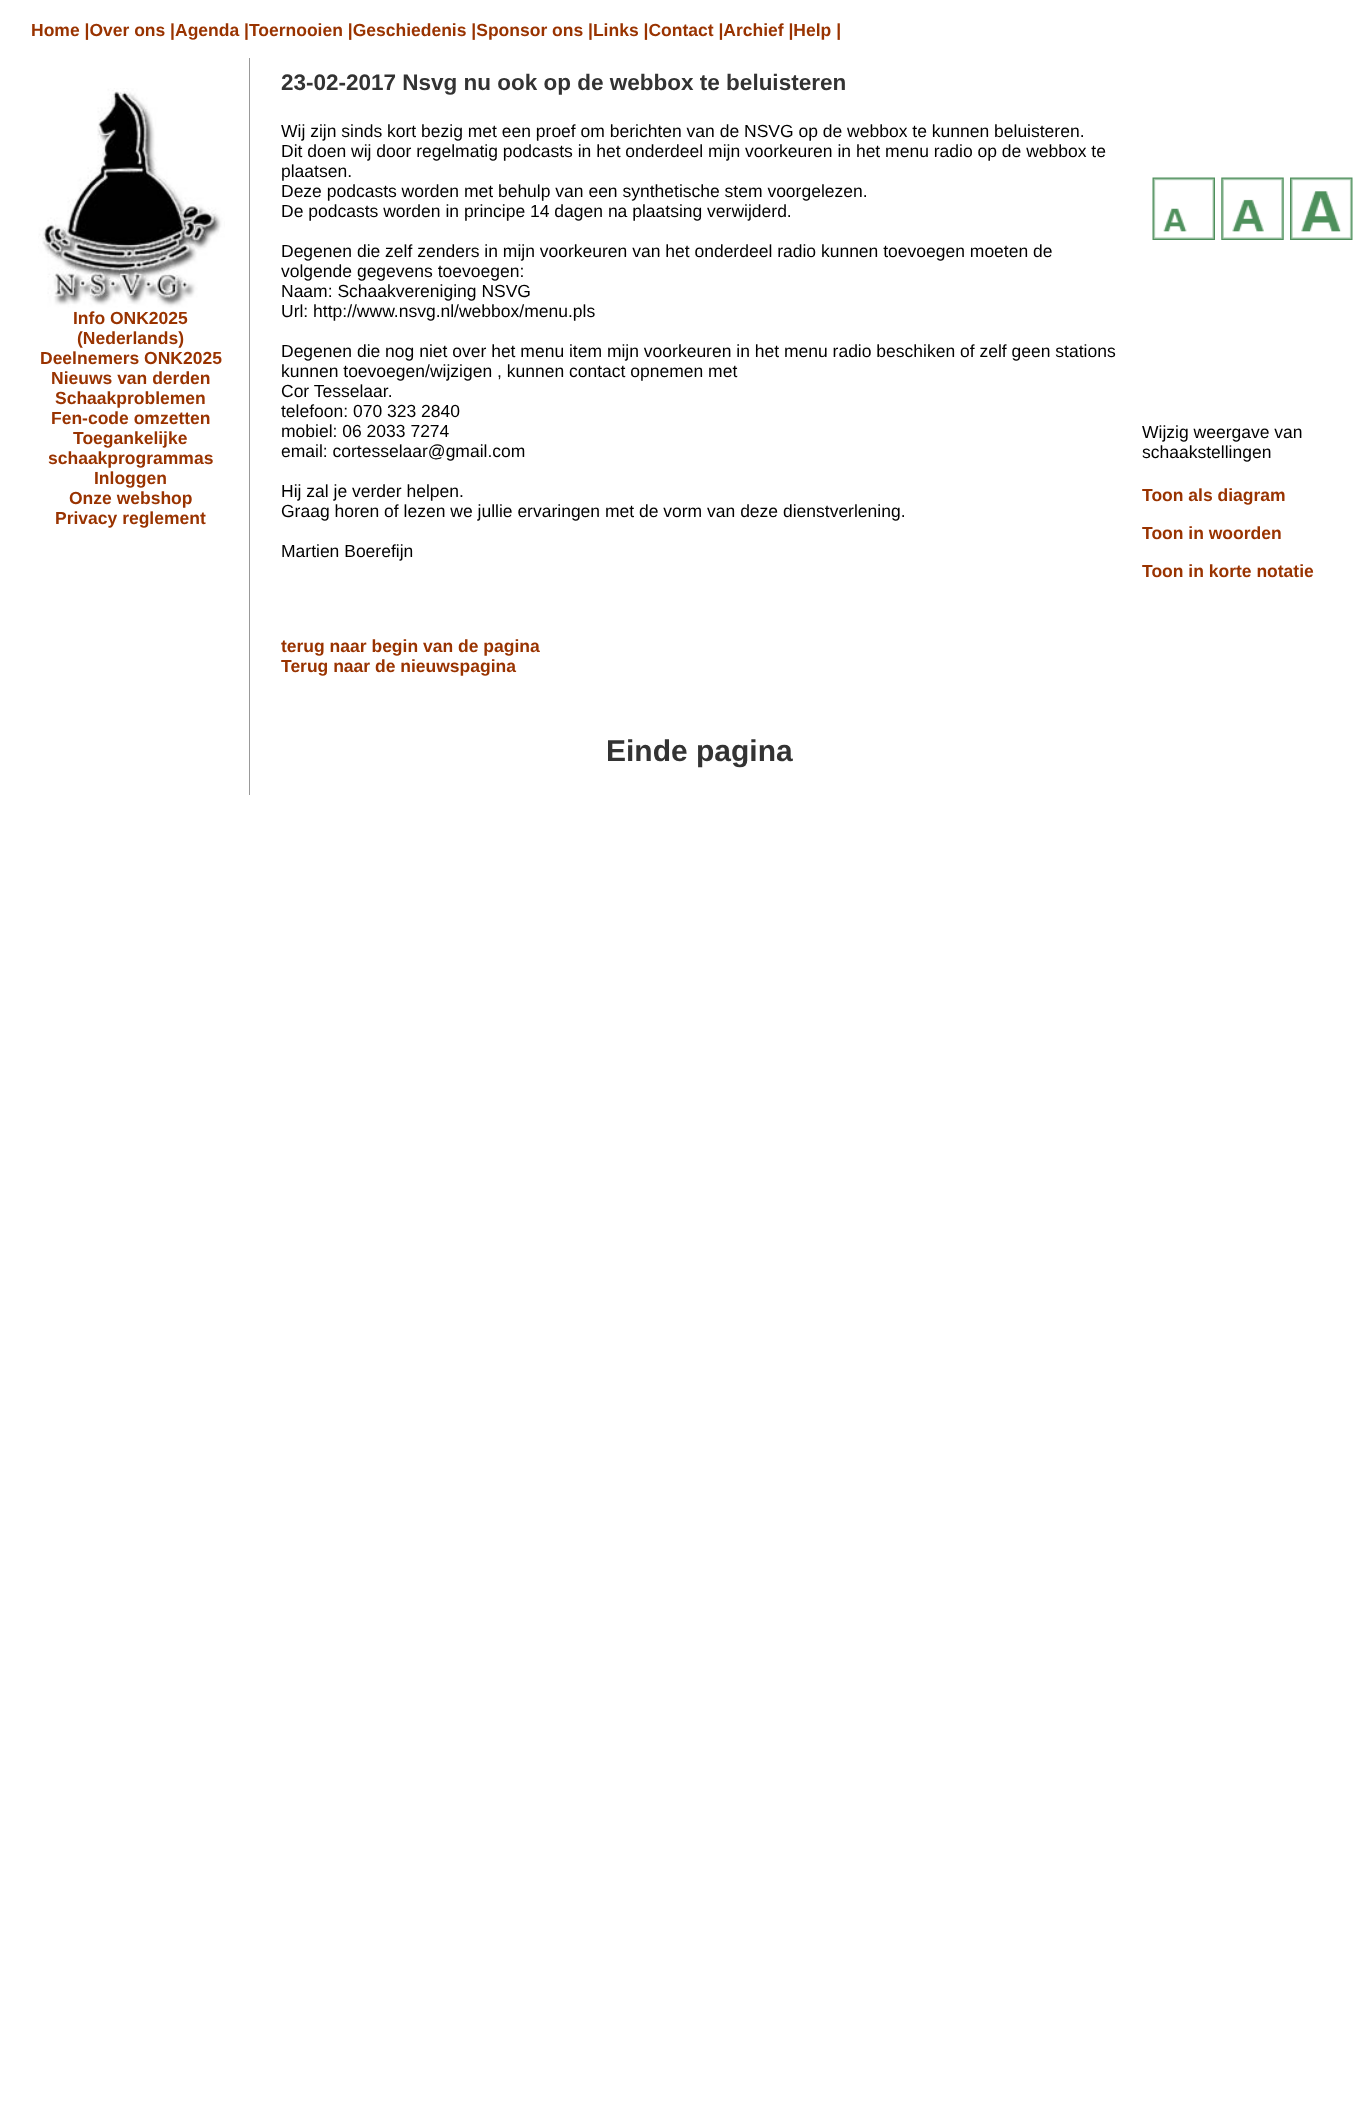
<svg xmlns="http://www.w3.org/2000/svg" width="1369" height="2123">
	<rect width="100%" height="100%" fill="#FFFFFF" />
	<text x="31" y="36" font-family="Liberation Sans" font-size="17.5" font-weight="700" fill="#993300">Home |Over ons |Agenda |Toernooien |Geschiedenis |Sponsor ons |Links |Contact |Archief |Help |</text>
	<rect x="249" y="58" width="1" height="737" fill="#999999" />
	<image x="38" y="88" width="187" height="220" href="assets/img1.png" />
	<g font-family="Liberation Sans" font-size="17.5" font-weight="700" fill="#993300">
		<text x="73" y="324">Info ONK2025</text>
		<text x="77" y="344">(Nederlands)</text>
		<text x="40" y="364">Deelnemers ONK2025</text>
		<text x="51" y="384">Nieuws van derden</text>
		<text x="55" y="404">Schaakproblemen</text>
		<text x="51" y="424">Fen-code omzetten</text>
		<text x="73" y="444">Toegankelijke</text>
		<text x="48" y="464">schaakprogrammas</text>
		<text x="94" y="484">Inloggen</text>
		<text x="69" y="504">Onze webshop</text>
		<text x="55" y="524">Privacy reglement</text>
	</g>
	<text x="281" y="90" font-family="Liberation Sans" font-size="22.5" font-weight="700" fill="#333333">23-02-2017 Nsvg nu ook op de webbox te beluisteren</text>
	<g font-family="Liberation Sans" font-size="17.5" fill="#000000">
		<text x="281" y="137">Wij zijn sinds kort bezig met een proef om berichten van de NSVG op de webbox te kunnen beluisteren.</text>
		<text x="281" y="157">Dit doen wij door regelmatig podcasts in het onderdeel mijn voorkeuren in het menu radio op de webbox te</text>
		<text x="281" y="177">plaatsen.</text>
		<text x="281" y="197">Deze podcasts worden met behulp van een synthetische stem voorgelezen.</text>
		<text x="281" y="217">De podcasts worden in principe 14 dagen na plaatsing verwijderd.</text>
		<text x="281" y="257">Degenen die zelf zenders in mijn voorkeuren van het onderdeel radio kunnen toevoegen moeten de</text>
		<text x="281" y="277">volgende gegevens toevoegen:</text>
		<text x="281" y="297">Naam: Schaakvereniging NSVG</text>
		<text x="281" y="317">Url: http://www.nsvg.nl/webbox/menu.pls</text>
		<text x="281" y="357">Degenen die nog niet over het menu item mijn voorkeuren in het menu radio beschiken of zelf geen stations</text>
		<text x="281" y="377">kunnen toevoegen/wijzigen , kunnen contact opnemen met</text>
		<text x="281" y="397">Cor Tesselaar.</text>
		<text x="281" y="417">telefoon: 070 323 2840</text>
		<text x="281" y="437">mobiel: 06 2033 7274</text>
		<text x="281" y="457">email: cortesselaar@gmail.com</text>
		<text x="281" y="497">Hij zal je verder helpen.</text>
		<text x="281" y="517">Graag horen of lezen we jullie ervaringen met de vorm van deze dienstverlening.</text>
		<text x="281" y="557">Martien Boerefijn</text>
	</g>
	<g font-family="Liberation Sans" font-size="17.5" font-weight="700" fill="#993300">
		<text x="281" y="652">terug naar begin van de pagina</text>
		<text x="281" y="672">Terug naar de nieuwspagina</text>
	</g>
	<text x="606" y="761" font-family="Liberation Sans" font-size="30" font-weight="700" fill="#333333">Einde pagina</text>
	<image x="1152" y="177" width="63" height="63" href="assets/img2.png" />
	<image x="1221" y="177" width="63" height="63" href="assets/img3.png" />
	<image x="1290" y="177" width="63" height="63" href="assets/img4.png" />
	<g font-family="Liberation Sans" font-size="17.5" fill="#000000">
		<text x="1142" y="438">Wijzig weergave van</text>
		<text x="1142" y="458">schaakstellingen</text>
	</g>
	<g font-family="Liberation Sans" font-size="17.5" font-weight="700" fill="#993300">
		<text x="1142" y="501">Toon als diagram</text>
		<text x="1142" y="539">Toon in woorden</text>
		<text x="1142" y="577">Toon in korte notatie</text>
	</g>
</svg>
